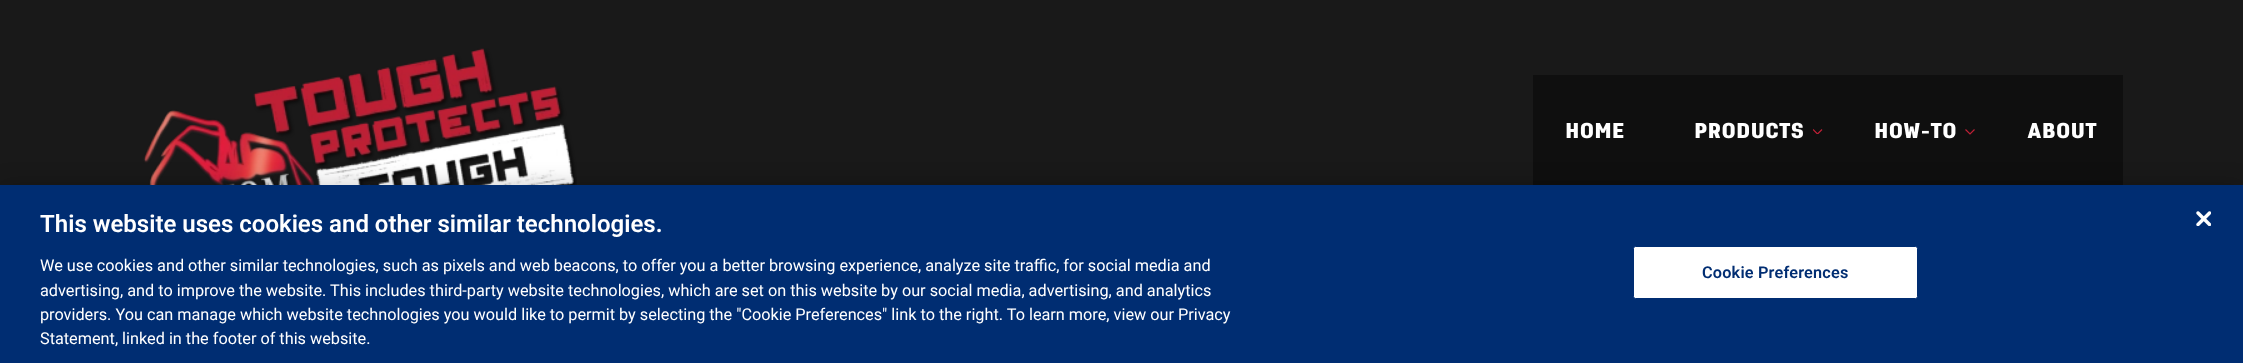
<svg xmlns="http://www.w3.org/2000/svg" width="2243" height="363">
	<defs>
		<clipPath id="clip1"><rect x="1813" y="129" width="10" height="5" /></clipPath>
	</defs>
	<rect width="100%" height="100%" fill="#191919" />
	<image x="143" y="48" width="434" height="137" href="assets/img1.png" />
	<rect x="1533" y="75" width="590" height="110" fill="#0F0F0F" />
	<g font-family="'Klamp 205'" font-size="22.5" font-weight="900" fill="#FFFFFF">
		<text x="1565" y="138">HOME</text>
		<text x="1694" y="138">PRODUCTS</text>
	</g>
	<g clip-path="url(#clip1)">
		<path d="M1813 129.5L1817.5 134L1822 129.5" fill="none" stroke="#BE2036" stroke-width="1.2" />
	</g>
	<text x="1874" y="138" font-family="'Klamp 205'" font-size="22.5" font-weight="900" fill="#FFFFFF">HOW-TO</text>
	<path d="M1965.5 129.5L1970 134L1974.5 129.5" fill="none" stroke="#BE2036" stroke-width="1.2" />
	<text x="2027" y="138" font-family="'Klamp 205'" font-size="22.5" font-weight="900" fill="#FFFFFF">ABOUT</text>
	<rect x="0" y="185" width="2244" height="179" fill="#000000" fill-opacity="0.2" filter="blur(11px)" />
	<rect x="0" y="185" width="2243" height="178" fill="#002D72" />
	<text x="40" y="232" font-family="Roboto" font-size="24" font-weight="600" fill="#FFFFFF">This website uses cookies and other similar technologies.</text>
	<g font-family="Roboto" font-size="16.25" fill="#FFFFFF">
		<text x="40" y="271">We use cookies and other similar technologies, such as pixels and web beacons, to offer you a better browsing experience, analyze site traffic, for social media and</text>
		<text x="40" y="296">advertising, and to improve the website. This includes third-party website technologies, which are set on this website by our social media, advertising, and analytics</text>
		<text x="40" y="320">providers. You can manage which website technologies you would like to permit by selecting the "Cookie Preferences" link to the right. To learn more, view our Privacy</text>
		<text x="40" y="344">Statement, linked in the footer of this website.</text>
	</g>
	<rect x="1633.5" y="246.5" width="284" height="52" rx="2" fill="#FFFFFF" stroke="#002D72" />
	<text x="1702" y="278" font-family="Roboto" font-size="16.25" font-weight="600" letter-spacing="0.2" fill="#002D72">Cookie Preferences</text>
	<image x="2196" y="211" width="15" height="15" href="assets/img2.png" />
</svg>
